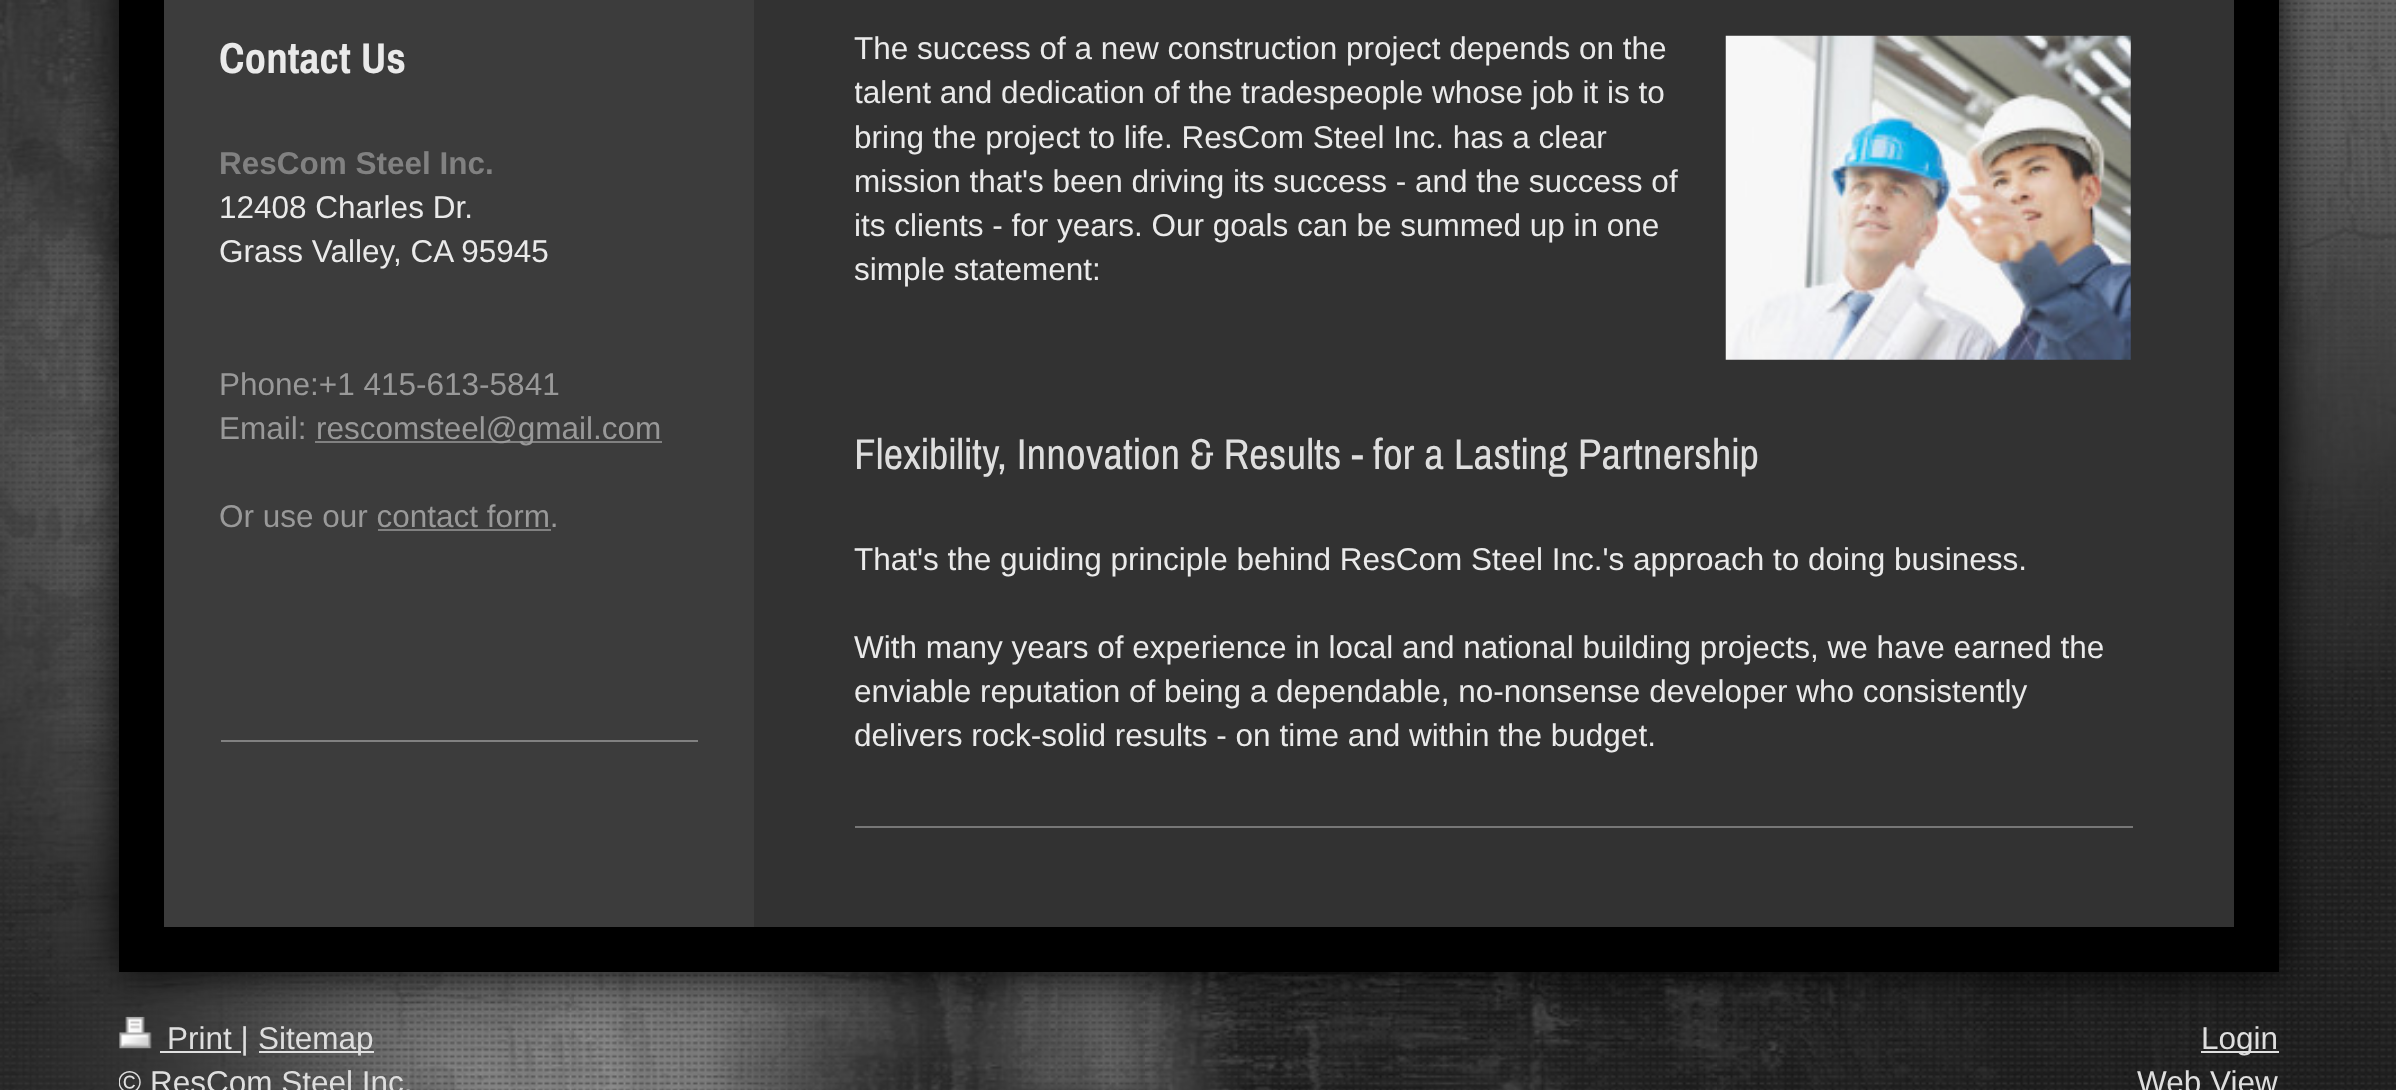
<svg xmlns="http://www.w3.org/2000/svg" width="2396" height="1090">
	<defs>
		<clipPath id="clip1"><rect x="855" y="27" width="1278" height="342" /></clipPath>
		<clipPath id="clip2"><rect x="119" y="1017" width="2160" height="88" /></clipPath>
	</defs>
	<rect width="100%" height="100%" fill="#FFFFFF" />
	<image x="0" y="0" width="2396" height="1090" href="assets/img1.png" />
	<rect x="119" y="-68" width="2160" height="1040" fill="#000000" filter="blur(22.5px)" />
	<rect x="119" y="0" width="2160" height="972" fill="#000000" />
	<rect x="754" y="0" width="1480" height="927" fill="#323232" />
	<rect x="164" y="0" width="590" height="927" fill="#3C3C3C" />
	<text x="854" y="59" font-family="Liberation Sans" font-size="31.5" fill="#EAEAEA">The success of a new construction project depends on the</text>
	<g clip-path="url(#clip1)">
		<text x="854" y="103" font-family="Liberation Sans" font-size="31.5" fill="#EAEAEA">talent and dedication of the tradespeople whose job it is to</text>
	</g>
	<g font-family="Liberation Sans" font-size="31.5" fill="#EAEAEA">
		<text x="854" y="148">bring the project to life. ResCom Steel Inc. has a clear</text>
		<text x="854" y="192">mission that's been driving its success - and the success of</text>
		<text x="854" y="236">its clients - for years. Our goals can be summed up in one</text>
		<text x="854" y="280">simple statement:</text>
	</g>
	<image x="1725" y="35" width="406" height="325" href="assets/img2.png" />
	<text x="854" y="469" font-family="Archivo Narrow" font-size="43.2" fill="#DEDEDE">Flexibility, Innovation &amp; Results - for a Lasting Partnership</text>
	<g font-family="Liberation Sans" font-size="31.5" fill="#EAEAEA">
		<text x="854" y="570">That's the guiding principle behind ResCom Steel Inc.'s approach to doing business.</text>
		<text x="854" y="658">With many years of experience in local and national building projects, we have earned the</text>
		<text x="854" y="702">enviable reputation of being a dependable, no-nonsense developer who consistently</text>
		<text x="854" y="746">delivers rock-solid results - on time and within the budget.</text>
	</g>
	<rect x="855" y="826" width="1278" height="2" fill="#777777" />
	<text x="219" y="73" font-family="Archivo Narrow" font-size="43.2" font-weight="700" fill="#EAEAEA">Contact Us</text>
	<text x="219" y="174" font-family="Liberation Sans" font-size="31.5" font-weight="700" fill="#818181">ResCom Steel Inc.</text>
	<g font-family="Liberation Sans" font-size="31.5" fill="#EAEAEA">
		<text x="219" y="218">12408 Charles Dr.</text>
		<text x="219" y="262">Grass Valley, CA 95945</text>
	</g>
	<g font-family="Liberation Sans" font-size="31.5" fill="#999999">
		<text x="219" y="395">Phone:+1 415-613-5841</text>
		<text x="219" y="439">Email:</text>
	</g>
	<rect x="315" y="441" width="347" height="2" fill="#818181" />
	<g font-family="Liberation Sans" font-size="31.5" fill="#999999">
		<text x="316" y="439">rescomsteel@gmail.com</text>
		<text x="219" y="527">Or use our contact form.</text>
	</g>
	<rect x="378" y="529" width="173" height="2" fill="#818181" />
	<rect x="221" y="740" width="477" height="2" fill="#818181" />
	<image x="119" y="1016" width="33" height="33" href="assets/img3.png" />
	<rect x="160" y="1051" width="81" height="2" fill="#E0E0E0" />
	<text x="167" y="1049" font-family="Liberation Sans" font-size="31.5" fill="#DEDEDE">Print |</text>
	<rect x="259" y="1051" width="115" height="2" fill="#E0E0E0" />
	<text x="258" y="1049" font-family="Liberation Sans" font-size="31.5" fill="#DEDEDE">Sitemap</text>
	<g clip-path="url(#clip2)">
		<text x="118" y="1093" font-family="Liberation Sans" font-size="31.5" fill="#DEDEDE">© ResCom Steel Inc.</text>
	</g>
	<rect x="2201" y="1051" width="78" height="2" fill="#E0E0E0" />
	<g font-family="Liberation Sans" font-size="31.5" fill="#DEDEDE">
		<text x="2201" y="1049">Login</text>
		<text x="2137" y="1093">Web View</text>
	</g>
</svg>
